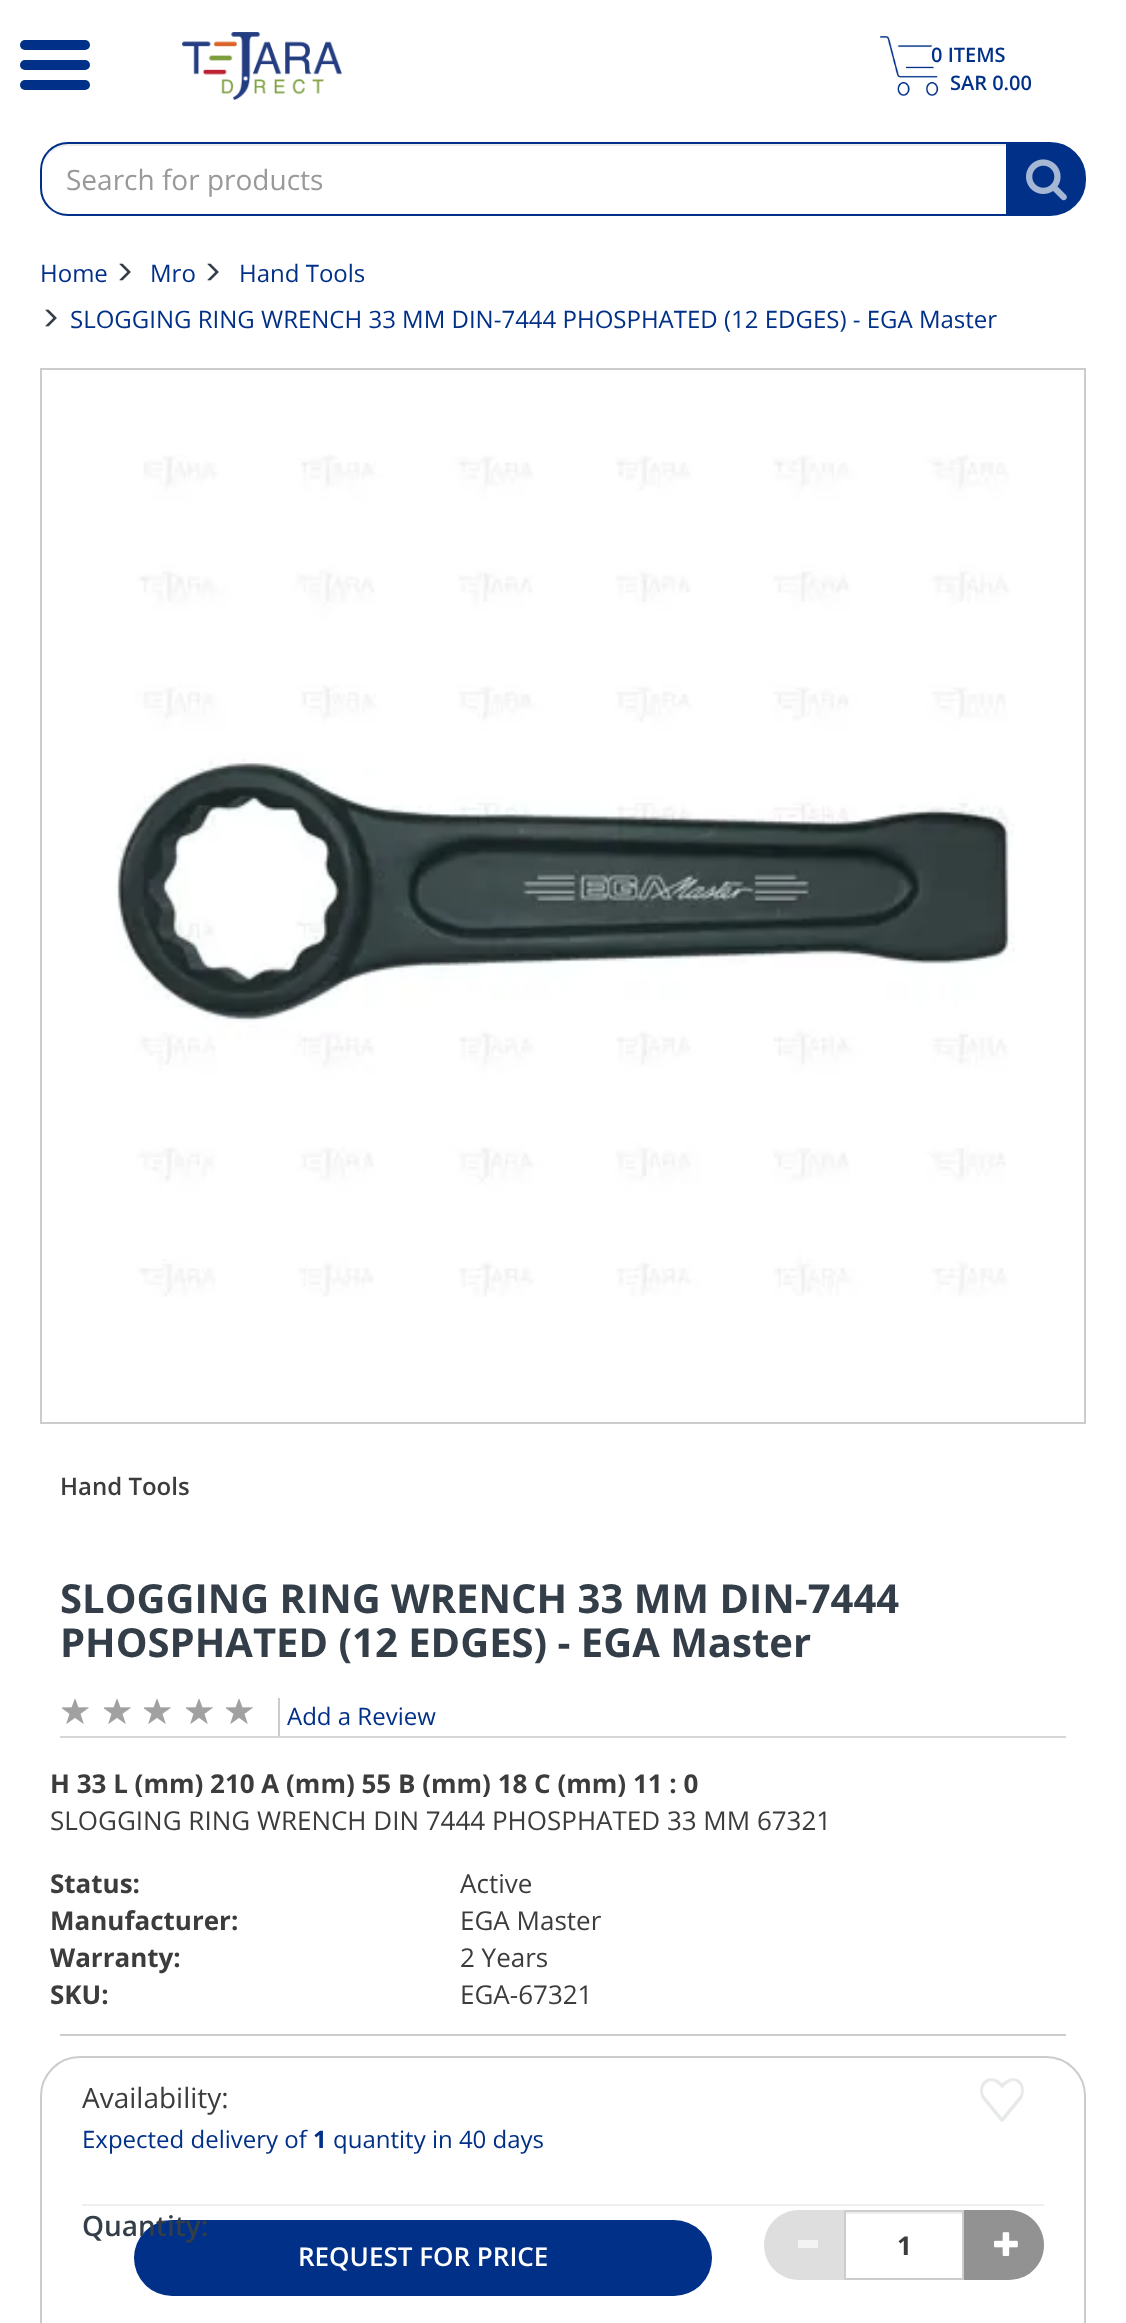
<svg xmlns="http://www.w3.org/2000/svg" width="1126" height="2323">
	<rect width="100%" height="100%" fill="#FFFFFF" />
	<rect x="20" y="40" width="70" height="10" rx="5" fill="#003087" />
	<rect x="20" y="60" width="70" height="10" rx="5" fill="#003087" />
	<rect x="20" y="80" width="70" height="10" rx="5" fill="#003087" />
	<image x="182" y="32" width="160" height="68" href="assets/img1.png" />
	<image x="880" y="36" width="59" height="60" href="assets/img2.png" />
	<circle cx="955" cy="55" r="25" fill="#FFFFFF" />
	<g font-family="Open Sans" font-size="20" font-weight="600" fill="#003087">
		<text x="931" y="62">0 ITEMS</text>
		<text x="950" y="90">SAR 0.00</text>
	</g>
	<path d="M68 146H1006V144H68C54 144 42 156 42 170V172C42 158 54 146 68 146Z" fill="#ECECEC" />
	<path d="M68 143H1007V215H68C53 215 41 203 41 188V170C41 155 53 143 68 143Z" fill="none" stroke="#003087" stroke-width="2" />
	<text x="66" y="190" font-family="Open Sans" font-size="28" fill="#999999">Search for products</text>
	<path d="M1009 143H1050C1069.5 143 1085 158.5 1085 178V180C1085 199.5 1069.5 215 1050 215H1009Z" fill="#003087" stroke="#003087" stroke-width="2" />
	<image x="1026" y="159" width="41" height="42" href="assets/img3.png" />
	<text x="40" y="282" font-family="Open Sans" font-size="24" fill="#003087">Home</text>
	<image x="119" y="263" width="12" height="18" href="assets/img4.png" />
	<text x="150" y="282" font-family="Open Sans" font-size="24" fill="#003087">Mro</text>
	<image x="207" y="263" width="12" height="18" href="assets/img4.png" />
	<text x="239" y="282" font-family="Open Sans" font-size="24" fill="#003087">Hand Tools</text>
	<image x="45" y="309" width="12" height="18" href="assets/img4.png" />
	<text x="70" y="328" font-family="Open Sans" font-size="24" fill="#003087">SLOGGING RING WRENCH 33 MM DIN-7444 PHOSPHATED (12 EDGES) - EGA Master</text>
	<rect x="41" y="369" width="1044" height="1054" fill="none" stroke="#CCCCCC" stroke-width="2" />
	<image x="115" y="454" width="900" height="843" href="assets/img5.png" />
	<rect x="60" y="1736" width="1006" height="2" fill="#D6D6D6" />
	<text x="60" y="1495" font-family="Open Sans" font-size="24" font-weight="600" fill="#3C3C3C">Hand Tools</text>
	<g font-family="Open Sans" font-size="40" font-weight="700" fill="#333E48">
		<text x="60" y="1613">SLOGGING RING WRENCH 33 MM DIN-7444</text>
		<text x="60" y="1657">PHOSPHATED (12 EDGES) - EGA Master</text>
	</g>
	<image x="62" y="1698" width="27" height="26" href="assets/img6.png" />
	<image x="104" y="1698" width="27" height="26" href="assets/img6.png" />
	<image x="144" y="1698" width="27" height="26" href="assets/img6.png" />
	<image x="186" y="1698" width="27" height="26" href="assets/img6.png" />
	<image x="226" y="1698" width="27" height="26" href="assets/img6.png" />
	<rect x="278" y="1698" width="2" height="38" fill="#CCCCCC" />
	<text x="287" y="1725" font-family="Open Sans" font-size="24" fill="#003087">Add a Review</text>
	<text x="50" y="1793" font-family="Open Sans" font-size="26" font-weight="700" fill="#3C3C3C">H 33 L (mm) 210 A (mm) 55 B (mm) 18 C (mm) 11 : 0</text>
	<text x="50" y="1830" font-family="Open Sans" font-size="26" fill="#3C3C3C">SLOGGING RING WRENCH DIN 7444 PHOSPHATED 33 MM 67321</text>
	<text x="50" y="1893" font-family="Open Sans" font-size="26" font-weight="700" fill="#3C3C3C">Status:</text>
	<text x="460" y="1893" font-family="Open Sans" font-size="26" fill="#3C3C3C">Active</text>
	<text x="50" y="1930" font-family="Open Sans" font-size="26" font-weight="700" fill="#3C3C3C">Manufacturer:</text>
	<text x="460" y="1930" font-family="Open Sans" font-size="26" fill="#3C3C3C">EGA Master</text>
	<text x="50" y="1967" font-family="Open Sans" font-size="26" font-weight="700" fill="#3C3C3C">Warranty:</text>
	<text x="460" y="1967" font-family="Open Sans" font-size="26" fill="#3C3C3C">2 Years</text>
	<text x="50" y="2004" font-family="Open Sans" font-size="26" font-weight="700" fill="#3C3C3C">SKU:</text>
	<text x="460" y="2004" font-family="Open Sans" font-size="26" fill="#3C3C3C">EGA-67321</text>
	<rect x="60" y="2034" width="1006" height="2" fill="#CCCCCC" />
	<rect x="41" y="2057" width="1044" height="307" rx="39" fill="none" stroke="#CCCCCC" stroke-width="2" />
	<text x="82" y="2108" font-family="Open Sans" font-size="28" fill="#3C3C3C">Availability:</text>
	<image x="980" y="2078" width="44" height="44" href="assets/img7.png" />
	<text x="82" y="2148" font-family="Open Sans" font-size="24" fill="#003087">Expected delivery of</text>
	<text x="313" y="2148" font-family="Open Sans" font-size="24" font-weight="700" fill="#003087">1</text>
	<text x="333" y="2148" font-family="Open Sans" font-size="24" fill="#003087">quantity in 40 days</text>
	<rect x="82" y="2204" width="962" height="2" fill="#EEEEEE" />
	<rect x="134" y="2220" width="578" height="76" rx="38" fill="#003087" />
	<text x="82" y="2236" font-family="Open Sans" font-size="28" font-weight="600" fill="#333E48">Quantity:</text>
	<text x="298" y="2266" font-family="Open Sans" font-size="26" font-weight="600" fill="#FFFFFF">REQUEST FOR PRICE</text>
	<path d="M799 2210H844V2280H799C779.5 2280 764 2264.5 764 2245C764 2225.5 779.5 2210 799 2210Z" fill="#DEDEDE" />
	<rect x="798" y="2240" width="20" height="8" fill="#F3F3F3" />
	<rect x="846" y="2212" width="116" height="2" fill="#ECECEC" />
	<rect x="845" y="2211" width="118" height="68" fill="none" stroke="#CCCCCC" stroke-width="2" />
	<text x="897" y="2255" font-family="Open Sans" font-size="26" font-weight="700" fill="#3C3C3C">1</text>
	<path d="M964 2210H1009C1028.5 2210 1044 2225.5 1044 2245C1044 2264.5 1028.5 2280 1009 2280H964Z" fill="#929292" />
	<image x="994" y="2232" width="24" height="24" href="assets/img8.png" />
</svg>
